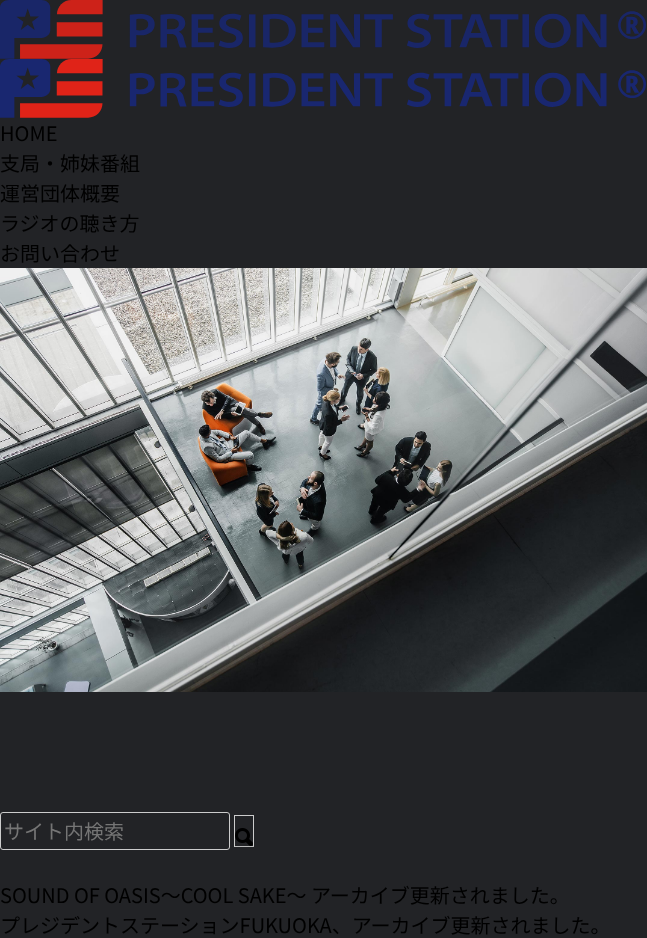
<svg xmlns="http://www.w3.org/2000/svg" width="647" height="938">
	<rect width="100%" height="100%" fill="#222326" />
	<image x="0" y="0" width="646" height="59" href="assets/img1.png" />
	<image x="0" y="59" width="646" height="59" href="assets/img2.png" />
	<g font-family="Noto Sans JP" font-size="20" fill="#000000">
		<text x="0" y="141">HOME</text>
		<text x="0" y="171">支局・姉妹番組</text>
		<text x="0" y="201">運営団体概要</text>
		<text x="0" y="231">ラジオの聴き方</text>
		<text x="0" y="261">お問い合わせ</text>
	</g>
	<image x="0" y="268" width="647" height="424" href="assets/img3.png" />
	<rect x="0.5" y="812.5" width="229" height="37" rx="2.5" fill="none" stroke="#CCCCCC" />
	<text x="4" y="839" font-family="Noto Sans JP" font-size="20" fill="#757575">サイト内検索</text>
	<rect x="234" y="815" width="20" height="1" fill="#CCCCCC" />
	<rect x="253" y="815" width="1" height="32" fill="#CCCCCC" />
	<rect x="234" y="846" width="20" height="1" fill="#BBBBBB" />
	<rect x="234" y="815" width="1" height="32" fill="#CCCCCC" />
	<image x="235" y="828" width="18" height="18" href="assets/img4.png" />
	<g font-family="Noto Sans JP" font-size="20" fill="#000000">
		<text x="0" y="903">SOUND OF OASIS〜COOL SAKE〜 アーカイブ更新されました。</text>
		<text x="0" y="933">プレジデントステーションFUKUOKA、アーカイブ更新されました。</text>
	</g>
</svg>
